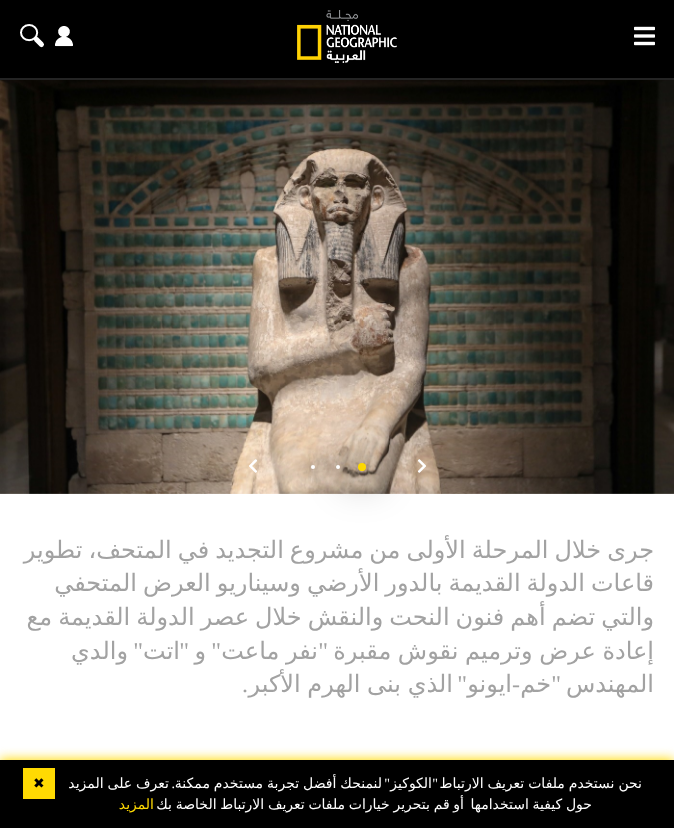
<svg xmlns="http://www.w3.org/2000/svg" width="674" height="828">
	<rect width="100%" height="100%" fill="#FFFFFF" />
	<rect x="0" y="0" width="674" height="78" fill="#000000" />
	<rect x="0" y="78" width="674" height="2" fill="#242424" />
	<image x="297" y="10" width="100" height="53" href="assets/img1.png" />
	<image x="634" y="26" width="21" height="20" href="assets/img2.png" />
	<image x="55" y="26" width="18" height="21" href="assets/img3.png" />
	<image x="20" y="24" width="24" height="24" href="assets/img4.png" />
	<image x="0" y="80" width="674" height="414" href="assets/img7.png" />
	<image x="417" y="459" width="9" height="14" href="assets/img5.png" />
	<rect x="344" y="449" width="36" height="36" rx="18" fill="#000000" fill-opacity="0.3" filter="blur(19px)" />
	<circle cx="362" cy="467" r="4" fill="#FFDA02" />
	<rect x="329" y="458" width="18" height="18" rx="9" fill="#000000" fill-opacity="0.3" filter="blur(9.5px)" />
	<circle cx="338" cy="467" r="2" fill="#FFFFFF" />
	<rect x="304" y="458" width="18" height="18" rx="9" fill="#000000" fill-opacity="0.3" filter="blur(9.5px)" />
	<circle cx="313" cy="467" r="2" fill="#FFFFFF" />
	<image x="249" y="459" width="9" height="14" href="assets/img6.png" />
	<g font-family="DejaVu Sans" font-size="24" direction="rtl" fill="#A2A2A2">
		<text x="654" y="558" word-spacing="-1.6">جرى خلال المرحلة الأولى من مشروع التجديد في المتحف، تطوير</text>
		<text x="654" y="591" word-spacing="-1.6">قاعات الدولة القديمة بالدور الأرضي وسيناريو العرض المتحفي</text>
		<text x="654" y="625" word-spacing="-1.6">والتي تضم أهم فنون النحت والنقش خلال عصر الدولة القديمة مع</text>
		<text x="654" y="659" word-spacing="-1">إعادة عرض وترميم نقوش مقبرة</text>
	</g>
	<text x="328" y="659" font-family="Liberation Serif" font-size="24" direction="rtl" fill="#A2A2A2">"</text>
	<text x="318" y="659" word-spacing="-1" font-family="DejaVu Sans" font-size="24" direction="rtl" fill="#A2A2A2">نفر ماعت</text>
	<g font-family="Liberation Serif" font-size="24" direction="rtl" fill="#A2A2A2">
		<text x="221" y="659">"</text>
		<text x="189" y="659">"</text>
	</g>
	<text x="180" y="659" font-family="DejaVu Sans" font-size="24" direction="rtl" fill="#A2A2A2">اتت</text>
	<text x="143" y="659" font-family="Liberation Serif" font-size="24" direction="rtl" fill="#A2A2A2">"</text>
	<g font-family="DejaVu Sans" font-size="24" direction="rtl" fill="#A2A2A2">
		<text x="128" y="659">والدي</text>
		<text x="206" y="659">و</text>
		<text x="654" y="692">المهندس</text>
	</g>
	<text x="561" y="692" font-family="Liberation Serif" font-size="24" direction="rtl" fill="#A2A2A2">"</text>
	<text x="551" y="692" font-family="DejaVu Sans" font-size="24" direction="rtl" fill="#A2A2A2">خم</text>
	<text x="520" y="692" font-family="Liberation Serif" font-size="24" direction="rtl" fill="#A2A2A2">-</text>
	<text x="512" y="692" font-family="DejaVu Sans" font-size="24" direction="rtl" fill="#A2A2A2">ايونو</text>
	<text x="467" y="692" font-family="Liberation Serif" font-size="24" direction="rtl" fill="#A2A2A2">"</text>
	<text x="453" y="692" word-spacing="-1" font-family="DejaVu Sans" font-size="24" direction="rtl" fill="#A2A2A2">الذي بنى الهرم الأكبر</text>
	<text x="248" y="692" font-family="Liberation Serif" font-size="24" direction="rtl" fill="#A2A2A2">.</text>
	<rect x="0" y="759" width="674" height="68" fill="#FFDA02" filter="blur(5.5px)" />
	<rect x="0" y="760" width="674" height="68" fill="#000000" />
	<text x="642" y="788" word-spacing="-0.5" font-family="DejaVu Sans" font-size="14" direction="rtl" fill="#FFFFFF">نحن نستخدم ملفات تعريف الارتباط</text>
	<g font-family="Liberation Serif" font-size="14" direction="rtl" fill="#FFFFFF">
		<text x="438" y="788">"</text>
		<text x="390" y="788">"</text>
	</g>
	<g font-family="DejaVu Sans" font-size="14" direction="rtl" fill="#FFFFFF">
		<text x="432" y="788">الكوكيز</text>
		<text x="382" y="788" word-spacing="-0.5">لنمنحك أفضل تجربة مستخدم ممكنة</text>
		<text x="169" y="788" word-spacing="-0.5">تعرف على المزيد</text>
	</g>
	<text x="175" y="788" font-family="Liberation Serif" font-size="14" direction="rtl" fill="#FFFFFF">.</text>
	<g font-family="DejaVu Sans" font-size="14" direction="rtl" fill="#FFFFFF">
		<text x="592" y="809" word-spacing="-0.75">حول كيفية استخدامها</text>
		<text x="464" y="809" word-spacing="-0.75">أو قم بتحرير خيارات ملفات تعريف الارتباط الخاصة بك</text>
	</g>
	<text x="154" y="809" font-family="DejaVu Sans" font-size="14" direction="rtl" fill="#FFDA02">المزيد</text>
	<rect x="23" y="768" width="32" height="31" fill="#FFDA02" />
	<text x="33" y="788" font-family="DejaVu Sans" font-size="14" fill="#000000">✖</text>
</svg>
